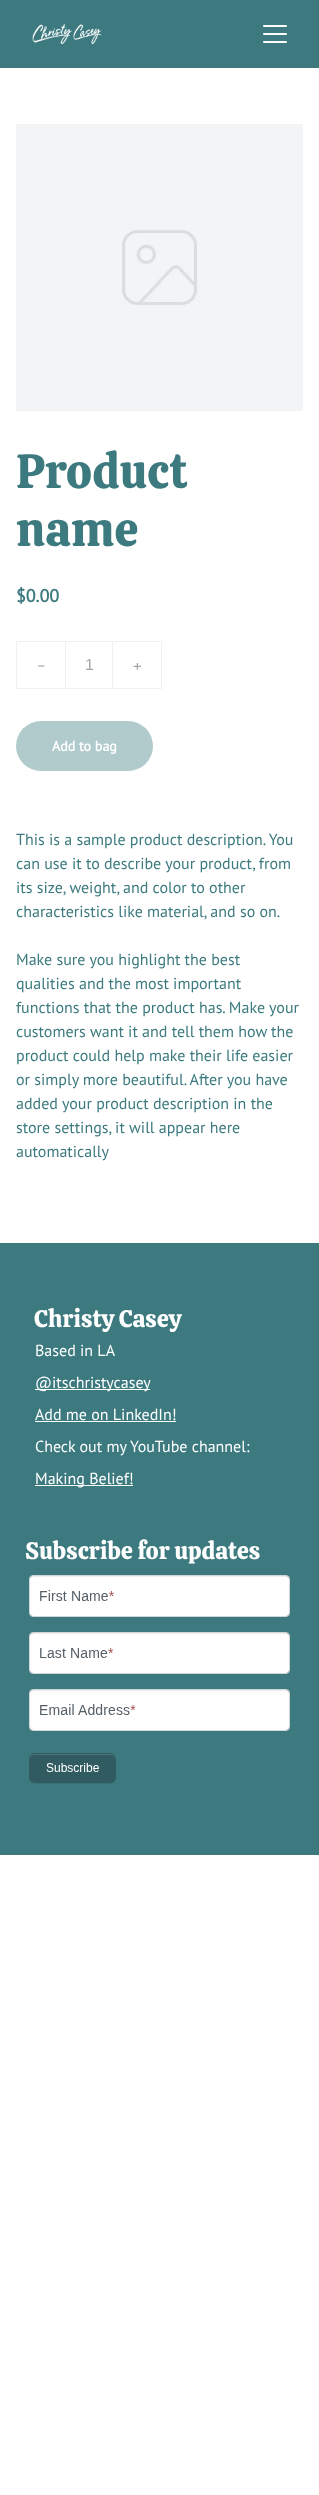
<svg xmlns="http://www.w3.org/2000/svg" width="319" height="2495">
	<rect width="100%" height="100%" fill="#FFFFFF" />
	<rect x="0" y="0" width="319" height="68" fill="#3C7A7F" />
	<image x="32" y="24" width="70" height="20" href="assets/img1.png" />
	<rect x="263" y="25" width="24" height="2" rx="1" fill="#FFFFFF" />
	<rect x="263" y="33" width="24" height="2" rx="1" fill="#FFFFFF" />
	<rect x="263" y="41" width="24" height="2" rx="1" fill="#FFFFFF" />
	<image x="16" y="124" width="287" height="287" href="assets/img2.png" />
	<g font-family="Calistoga" font-size="48" fill="#3C7A7F">
		<text x="16" y="488">Product</text>
		<text x="16" y="546">name</text>
	</g>
	<text x="16" y="602" font-family="PT Sans" font-size="18" font-weight="700" fill="#3C7A7F">$0.00</text>
	<rect x="16.5" y="641.5" width="145" height="47" fill="none" stroke="#F0F1F3" />
	<text x="37" y="671" font-family="DM Sans" font-size="16" fill="#A5A5A6">-</text>
	<rect x="112" y="642" width="1" height="46" fill="#F0F1F3" />
	<rect x="65" y="642" width="1" height="46" fill="#F0F1F3" />
	<text x="85" y="670" font-family="Liberation Sans" font-size="16" fill="#A5A5A6">1</text>
	<text x="133" y="671" font-family="DM Sans" font-size="16" fill="#A5A5A6">+</text>
	<rect x="16" y="721" width="137" height="50" rx="25" fill="#B1CACC" />
	<text x="52" y="751" font-family="PT Sans" font-size="14" font-weight="700" fill="#FFFFFF">Add to bag</text>
	<g font-family="PT Sans" font-size="16" fill="#3C7A7F">
		<text x="16" y="845">This is a sample product description. You</text>
		<text x="16" y="869">can use it to describe your product, from</text>
		<text x="16" y="893">its size, weight, and color to other</text>
		<text x="16" y="917">characteristics like material, and so on.</text>
		<text x="16" y="965">Make sure you highlight the best</text>
		<text x="16" y="989">qualities and the most important</text>
		<text x="16" y="1013">functions that the product has. Make your</text>
		<text x="16" y="1037">customers want it and tell them how the</text>
		<text x="16" y="1061">product could help make their life easier</text>
		<text x="16" y="1085">or simply more beautiful. After you have</text>
		<text x="16" y="1109">added your product description in the</text>
		<text x="16" y="1133">store settings, it will appear here</text>
		<text x="16" y="1157">automatically</text>
	</g>
	<rect x="0" y="1243" width="319" height="612" fill="#3C7A7F" />
	<text x="34" y="1327" font-family="Calistoga" font-size="24" fill="#FFFFFF">Christy Casey</text>
	<text x="35" y="1356" font-family="PT Sans" font-size="16" fill="#FFFFFF">Based in LA</text>
	<rect x="35" y="1389" width="115" height="1" fill="#FFFFFF" />
	<g font-family="PT Sans" font-size="16" fill="#FFFFFF">
		<text x="35" y="1388">@itschristycasey</text>
		<text x="35" y="1420">Add me on LinkedIn!</text>
	</g>
	<rect x="35" y="1421" width="141" height="1" fill="#FFFFFF" />
	<text x="35" y="1452" font-family="PT Sans" font-size="16" fill="#FFFFFF">Check out my YouTube channel:</text>
	<rect x="35" y="1485" width="98" height="1" fill="#FFFFFF" />
	<text x="35" y="1484" font-family="PT Sans" font-size="16" fill="#FFFFFF">Making Belief!</text>
	<text x="25" y="1559" font-family="Calistoga" font-size="24" fill="#FFFFFF">Subscribe for updates</text>
	<image x="29" y="1575" width="261" height="209" href="assets/img3.png" />
</svg>
